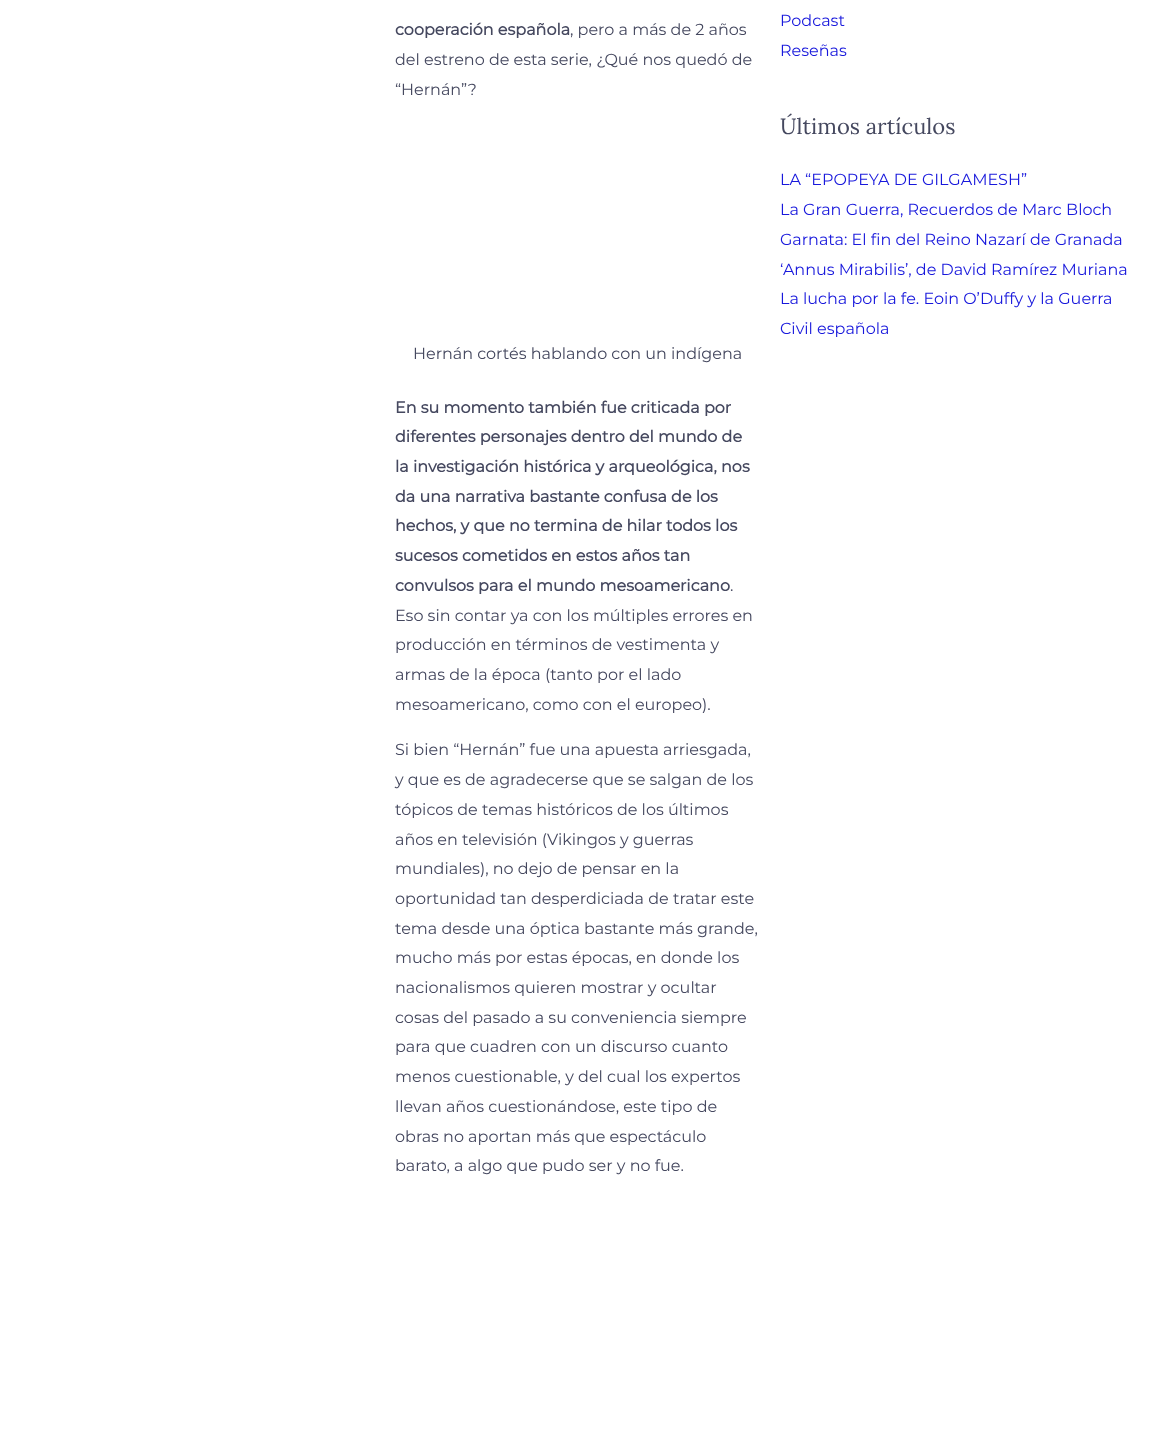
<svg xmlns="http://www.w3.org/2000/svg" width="1155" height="1430">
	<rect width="100%" height="100%" fill="#FFFFFF" />
	<text x="395" y="35" font-family="Montserrat" font-size="16" font-weight="700" fill="#45485F">cooperación española</text>
	<g font-family="Montserrat" font-size="16" font-weight="100" fill="#45485F">
		<text x="570" y="35">, pero a más de 2 años</text>
		<text x="395" y="65">del estreno de esta serie, ¿Qué nos quedó de</text>
		<text x="395" y="95">“Hernán”?</text>
		<text x="413" y="359">Hernán cortés hablando con un indígena</text>
	</g>
	<g font-family="Montserrat" font-size="16" font-weight="700" fill="#45485F">
		<text x="395" y="413">En su momento también fue criticada por</text>
		<text x="395" y="442">diferentes personajes dentro del mundo de</text>
		<text x="395" y="472">la investigación histórica y arqueológica, nos</text>
		<text x="395" y="502">da una narrativa bastante confusa de los</text>
		<text x="395" y="531">hechos, y que no termina de hilar todos los</text>
		<text x="395" y="561">sucesos cometidos en estos años tan</text>
		<text x="395" y="591">convulsos para el mundo mesoamericano</text>
	</g>
	<g font-family="Montserrat" font-size="16" font-weight="100" fill="#45485F">
		<text x="730" y="591">.</text>
		<text x="395" y="621">Eso sin contar ya con los múltiples errores en</text>
		<text x="395" y="650">producción en términos de vestimenta y</text>
		<text x="395" y="680">armas de la época (tanto por el lado</text>
		<text x="395" y="710">mesoamericano, como con el europeo).</text>
		<text x="395" y="755">Si bien “Hernán” fue una apuesta arriesgada,</text>
		<text x="395" y="785">y que es de agradecerse que se salgan de los</text>
		<text x="395" y="815">tópicos de temas históricos de los últimos</text>
		<text x="395" y="845">años en televisión (Vikingos y guerras</text>
		<text x="395" y="874">mundiales), no dejo de pensar en la</text>
		<text x="395" y="904">oportunidad tan desperdiciada de tratar este</text>
		<text x="395" y="934">tema desde una óptica bastante más grande,</text>
		<text x="395" y="963">mucho más por estas épocas, en donde los</text>
		<text x="395" y="993">nacionalismos quieren mostrar y ocultar</text>
		<text x="395" y="1023">cosas del pasado a su conveniencia siempre</text>
		<text x="395" y="1052">para que cuadren con un discurso cuanto</text>
		<text x="395" y="1082">menos cuestionable, y del cual los expertos</text>
		<text x="395" y="1112">llevan años cuestionándose, este tipo de</text>
		<text x="395" y="1142">obras no aportan más que espectáculo</text>
		<text x="395" y="1171">barato, a algo que pudo ser y no fue.</text>
	</g>
	<g font-family="Montserrat" font-size="16" font-weight="100" fill="#1818DC">
		<text x="780" y="26">Podcast</text>
		<text x="780" y="56">Reseñas</text>
	</g>
	<text x="780" y="134" font-family="Lora" font-size="22" fill="#45485F">Últimos artículos</text>
	<g font-family="Montserrat" font-size="16" font-weight="100" fill="#1818DC">
		<text x="780" y="185">LA “EPOPEYA DE GILGAMESH”</text>
		<text x="780" y="215">La Gran Guerra, Recuerdos de Marc Bloch</text>
		<text x="780" y="245">Garnata: El fin del Reino Nazarí de Granada</text>
		<text x="780" y="275">‘Annus Mirabilis’, de David Ramírez Muriana</text>
		<text x="780" y="304">La lucha por la fe. Eoin O’Duffy y la Guerra</text>
		<text x="780" y="334">Civil española</text>
	</g>
</svg>
